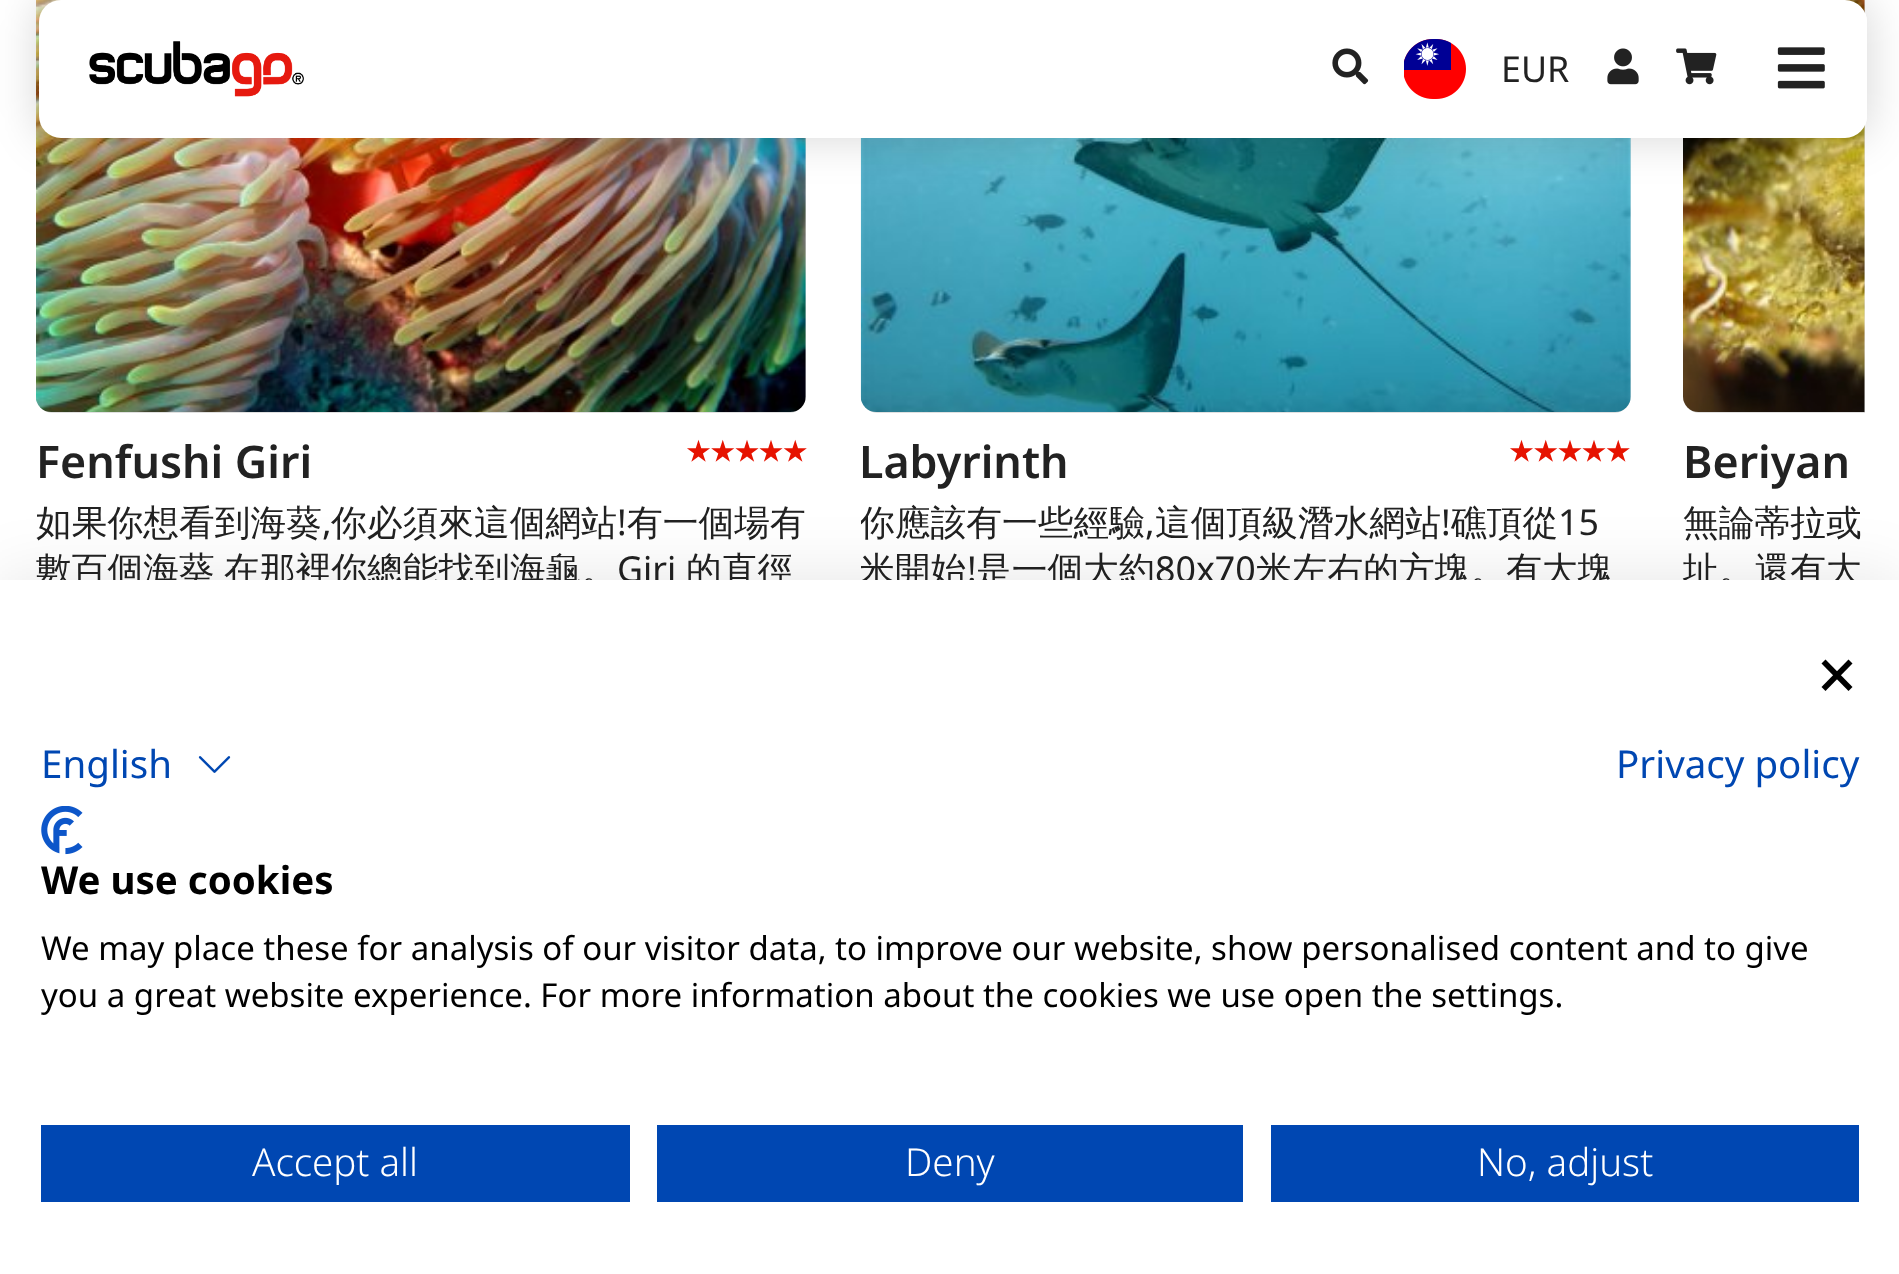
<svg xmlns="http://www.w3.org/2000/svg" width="1899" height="1274">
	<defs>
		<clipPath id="clip1"><path d="M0 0H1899V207H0ZM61 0H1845C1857 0 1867 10 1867 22V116C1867 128 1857 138 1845 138H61C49 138 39 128 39 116V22C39 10 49 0 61 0Z" clip-rule="evenodd" /></clipPath>
		<clipPath id="clip2"><rect x="861" y="501" width="770" height="90" /></clipPath>
	</defs>
	<rect width="100%" height="100%" fill="#FFFFFF" />
	<rect x="36" y="-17" width="770" height="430" rx="17" fill="#E0E0E0" />
	<image x="36" y="0" width="770" height="412" href="assets/img7.png" />
	<rect x="861" y="-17" width="770" height="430" rx="17" fill="#E0E0E0" />
	<image x="860" y="138" width="771" height="274" href="assets/img8.png" />
	<path d="M1700-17H1865V413H1700C1690.5 413 1683 405.5 1683 396V0C1683-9.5 1690.5-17 1700-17Z" fill="#E0E0E0" />
	<image x="1683" y="0" width="182" height="412" href="assets/img9.png" />
	<g clip-path="url(#clip1)">
		<rect x="36" y="-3" width="1834" height="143" rx="25" fill="#000000" fill-opacity="0.15" filter="blur(22px)" />
	</g>
	<rect x="39" y="0" width="1828" height="138" rx="22" fill="#FFFFFF" />
	<image x="89" y="41" width="215" height="56" href="assets/img1.png" />
	<image x="1332" y="48" width="37" height="37" href="assets/img2.png" />
	<image x="1404" y="39" width="62" height="60" href="assets/img3.png" />
	<text x="1501" y="82" font-family="Noto Sans" font-size="35.75" fill="#222222">EUR</text>
	<image x="1607" y="48" width="32" height="37" href="assets/img4.png" />
	<image x="1676" y="48" width="41" height="37" href="assets/img5.png" />
	<image x="1777" y="47" width="48" height="42" href="assets/img6.png" />
	<text x="36" y="478" font-family="Noto Sans" font-size="44.75" font-weight="600" fill="#222222">Fenfushi Giri</text>
	<text x="686" y="461" font-family="DejaVu Sans" font-size="27" font-weight="700" fill="#E61300">★★★★★</text>
	<text x="36" y="535" font-family="WenQuanYi Zen Hei" font-size="35.75" font-weight="500" fill="#222222">如果你想看到海葵</text>
	<text x="322" y="535" font-family="Noto Sans" font-size="35.75" fill="#222222">,</text>
	<text x="331" y="535" font-family="WenQuanYi Zen Hei" font-size="35.75" font-weight="500" fill="#222222">你必須來這個網站</text>
	<text x="617" y="535" font-family="Noto Sans" font-size="35.75" fill="#222222">!</text>
	<g font-family="WenQuanYi Zen Hei" font-size="35.75" font-weight="500" fill="#222222">
		<text x="627" y="535">有一個場有</text>
		<text x="36" y="582">數百個海葵</text>
		<text x="224" y="582">在那裡你總能找到海龜。</text>
	</g>
	<text x="617" y="582" font-family="Noto Sans" font-size="35.75" fill="#222222">Giri</text>
	<text x="686" y="582" font-family="WenQuanYi Zen Hei" font-size="35.75" font-weight="500" fill="#222222">的直徑</text>
	<text x="859" y="478" font-family="Noto Sans" font-size="44.75" font-weight="600" fill="#222222">Labyrinth</text>
	<text x="1509" y="461" font-family="DejaVu Sans" font-size="27" font-weight="700" fill="#E61300">★★★★★</text>
	<g clip-path="url(#clip2)">
		<text x="859" y="535" font-family="WenQuanYi Zen Hei" font-size="35.75" font-weight="500" fill="#222222">你應該有一些經驗</text>
	</g>
	<text x="1145" y="535" font-family="Noto Sans" font-size="35.75" fill="#222222">,</text>
	<text x="1155" y="535" font-family="WenQuanYi Zen Hei" font-size="35.75" font-weight="500" fill="#222222">這個頂級潛水網站</text>
	<text x="1441" y="535" font-family="Noto Sans" font-size="35.75" fill="#222222">!</text>
	<text x="1451" y="535" font-family="WenQuanYi Zen Hei" font-size="35.75" font-weight="500" fill="#222222">礁頂從</text>
	<text x="1558" y="535" font-family="Noto Sans" font-size="35.75" fill="#222222">15</text>
	<g clip-path="url(#clip2)">
		<text x="859" y="582" font-family="WenQuanYi Zen Hei" font-size="35.75" font-weight="500" fill="#222222">米開始</text>
	</g>
	<text x="967" y="582" font-family="Noto Sans" font-size="35.75" fill="#222222">!</text>
	<text x="976" y="582" font-family="WenQuanYi Zen Hei" font-size="35.75" font-weight="500" fill="#222222">是一個大約</text>
	<text x="1155" y="582" font-family="Noto Sans" font-size="35.75" fill="#222222">80x70</text>
	<text x="1256" y="582" font-family="WenQuanYi Zen Hei" font-size="35.75" font-weight="500" fill="#222222">米左右的方塊。有大塊</text>
	<text x="1683" y="478" font-family="Noto Sans" font-size="44.75" font-weight="600" fill="#222222">Beriyan</text>
	<g font-family="WenQuanYi Zen Hei" font-size="35.75" font-weight="500" fill="#222222">
		<text x="1683" y="535">無論蒂拉或</text>
		<text x="1683" y="582" word-spacing="-1">址。還有大</text>
	</g>
	<rect x="0" y="580" width="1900" height="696" fill="#000000" fill-opacity="0.1" filter="blur(33px)" />
	<rect x="0" y="580" width="1899" height="694" fill="#FFFFFF" />
	<path d="M1848.5 659.5L1852.5 663.5L1825.5 691L1821.5 687Z" fill="#000000" />
	<path d="M1821.5 663.5L1825.5 659.5L1852.5 687L1848.5 691Z" fill="#000000" />
	<text x="41" y="778" font-family="Noto Sans" font-size="38.5" fill="#0047B2">English</text>
	<image x="198" y="756" width="33" height="17" href="assets/img10.png" />
	<text x="1616" y="778" font-family="Noto Sans" font-size="38.5" fill="#0047B2">Privacy policy</text>
	<image x="41" y="806" width="42" height="49" href="assets/img11.png" />
	<text x="41" y="894" font-family="Noto Sans" font-size="38.5" font-weight="700" fill="#000000">We use cookies</text>
	<g font-family="Noto Sans" font-size="33" fill="#000000">
		<text x="41" y="960">We may place these for analysis of our visitor data, to improve our website, show personalised content and to give</text>
		<text x="41" y="1007">you a great website experience. For more information about the cookies we use open the settings.</text>
	</g>
	<rect x="41" y="1125" width="589" height="77" fill="#0047B2" />
	<text x="252" y="1176" font-family="Noto Sans" font-size="38.5" font-weight="300" fill="#FFFFFF">Accept all</text>
	<rect x="657" y="1125" width="586" height="77" fill="#0047B2" />
	<text x="905" y="1176" font-family="Noto Sans" font-size="38.5" font-weight="300" fill="#FFFFFF">Deny</text>
	<rect x="1271" y="1125" width="588" height="77" fill="#0047B2" />
	<text x="1477" y="1176" font-family="Noto Sans" font-size="38.5" font-weight="300" fill="#FFFFFF">No, adjust</text>
</svg>
